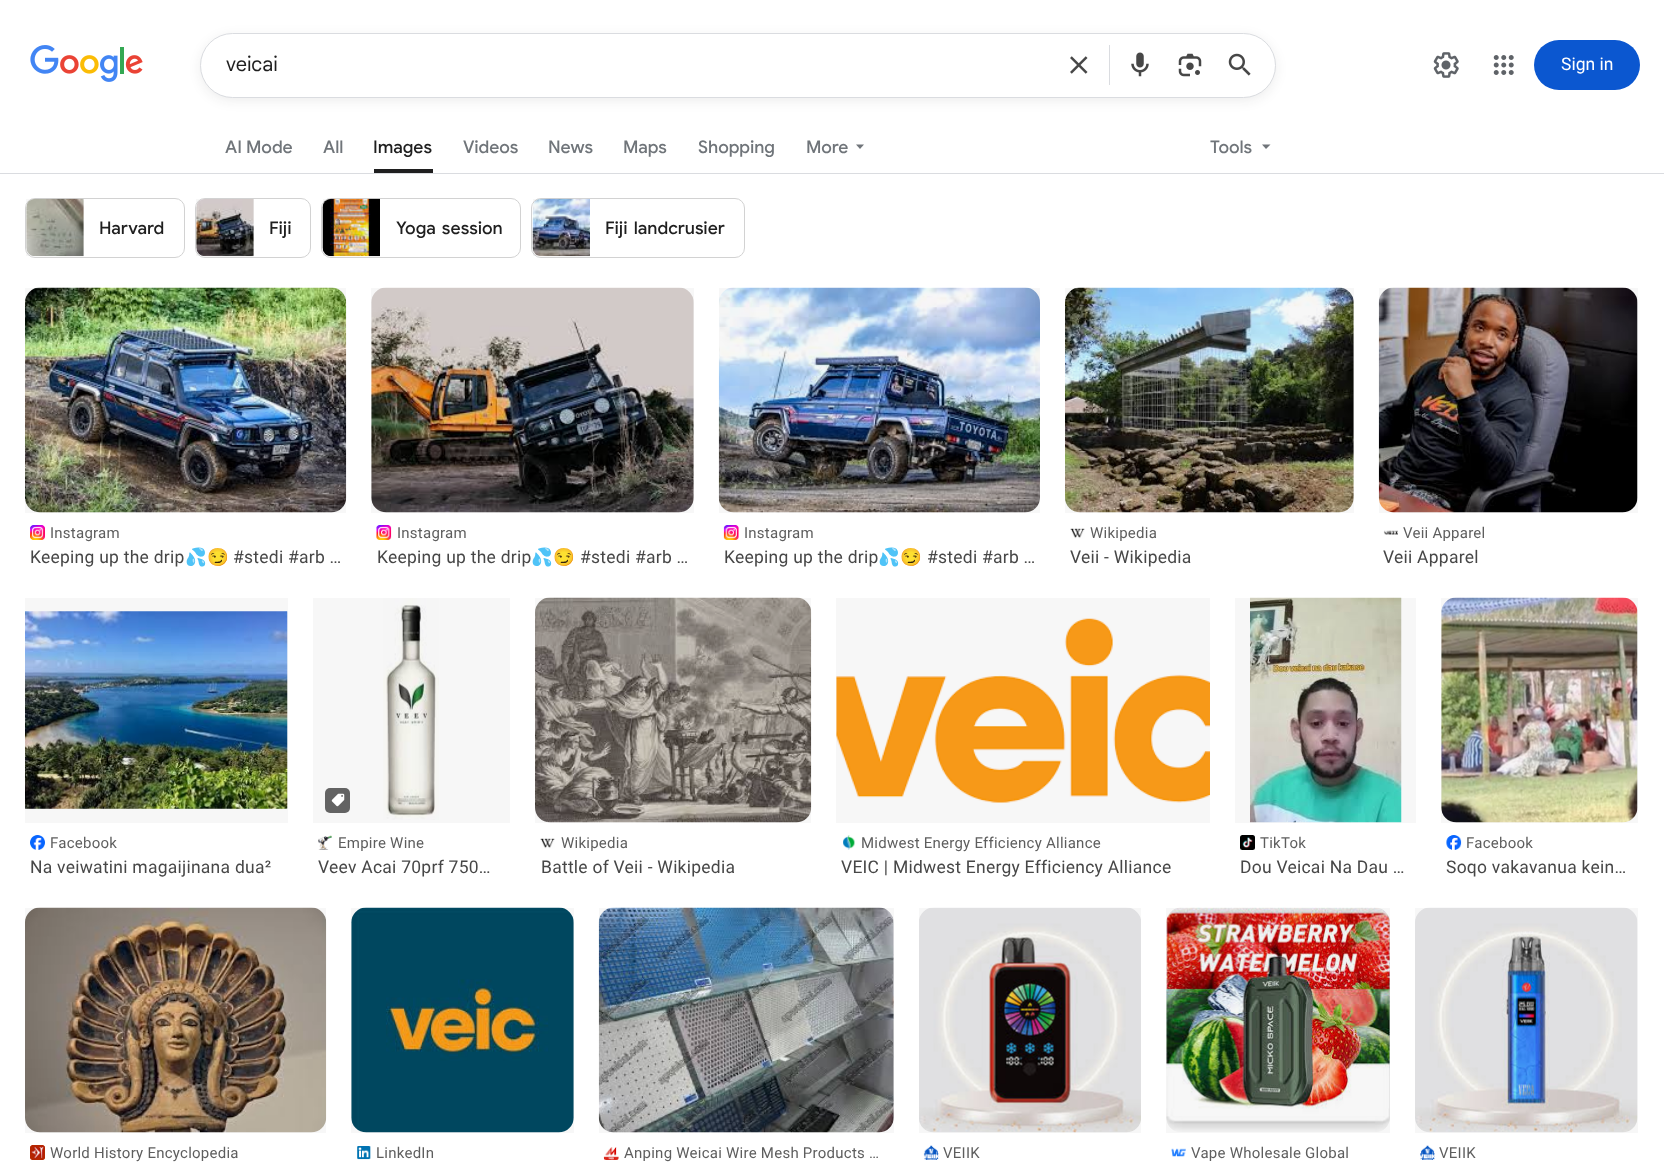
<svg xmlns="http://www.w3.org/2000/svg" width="1664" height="1166">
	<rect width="100%" height="100%" fill="#FFFFFF" />
	<image x="30" y="45" width="113" height="37" href="assets/img1.png" />
	<rect x="200" y="36" width="1076" height="65" rx="32.5" fill="#1F1F1F" fill-opacity="0.08" filter="blur(6px)" />
	<rect x="200.5" y="33.5" width="1075" height="64" rx="32" fill="#FFFFFF" stroke="#DADCE0" />
	<text x="226" y="71" font-family="Google Sans" font-size="20" fill="#1F1F1F">veicai</text>
	<image x="1070" y="56" width="18" height="18" href="assets/img2.png" />
	<rect x="1109" y="45" width="1" height="40" fill="#DADCE0" />
	<image x="1131" y="52" width="18" height="25" href="assets/img3.png" />
	<image x="1178" y="53" width="24" height="24" href="assets/img4.png" />
	<image x="1228" y="53" width="23" height="23" href="assets/img5.png" />
	<image x="1433" y="52" width="26" height="26" href="assets/img6.png" />
	<image x="1493" y="55" width="21" height="20" href="assets/img7.png" />
	<rect x="1534" y="40" width="106" height="50" rx="25" fill="#0B57D0" />
	<text x="1561" y="70" font-family="Roboto" font-size="17.5" fill="#FFFFFF">Sign in</text>
	<g font-family="Google Sans" font-size="17.5" font-weight="500" fill="#70757A">
		<text x="225" y="153">AI Mode</text>
		<text x="323" y="153">All</text>
	</g>
	<rect x="374" y="169" width="59" height="4" fill="#1F1F1F" />
	<text x="373" y="153" font-family="Google Sans" font-size="17.5" font-weight="500" fill="#1F1F1F">Images</text>
	<g font-family="Google Sans" font-size="17.5" font-weight="500" fill="#70757A">
		<text x="463" y="153">Videos</text>
		<text x="548" y="153">News</text>
		<text x="623" y="153">Maps</text>
		<text x="698" y="153">Shopping</text>
		<text x="806" y="153">More</text>
	</g>
	<path d="M856 144.5L860 149L864 144.5Z" fill="#70757A" />
	<text x="1210" y="153" font-family="Google Sans" font-size="17.5" font-weight="500" fill="#70757A">Tools</text>
	<path d="M1262 144.5L1266 149L1270.5 144.5Z" fill="#70757A" />
	<rect x="0" y="173" width="1664" height="1" fill="#DADCE0" />
	<rect x="25.5" y="198.5" width="159" height="59" rx="9.5" fill="none" stroke="#D2D2D2" />
	<path d="M35 199H84V256H35C30 256 26 252 26 247V208C26 203 30 199 35 199Z" fill="#FFFFFF" />
	<image x="26" y="198" width="58" height="59" href="assets/img8.png" />
	<rect x="26" y="199" width="58" height="57" fill="#000000" fill-opacity="0.03" />
	<text x="99" y="234" font-family="Google Sans" font-size="17.5" font-weight="500" fill="#1F1F1F">Harvard</text>
	<rect x="195.5" y="198.5" width="115" height="59" rx="9.5" fill="none" stroke="#D2D2D2" />
	<path d="M205 199H254V256H205C200 256 196 252 196 247V208C196 203 200 199 205 199Z" fill="#FFFFFF" />
	<image x="196" y="199" width="58" height="58" href="assets/img9.png" />
	<rect x="196" y="199" width="58" height="57" fill="#000000" fill-opacity="0.03" />
	<text x="269" y="234" font-family="Google Sans" font-size="17.5" font-weight="500" fill="#1F1F1F">Fiji</text>
	<rect x="321.5" y="198.5" width="199" height="59" rx="9.5" fill="none" stroke="#D2D2D2" />
	<image x="322" y="198" width="58" height="59" href="assets/img10.png" />
	<rect x="323" y="199" width="46" height="57" fill="#000000" fill-opacity="0.03" />
	<text x="396" y="234" word-spacing="2" font-family="Google Sans" font-size="17.5" font-weight="500" fill="#1F1F1F">Yoga session</text>
	<rect x="531.5" y="198.5" width="213" height="59" rx="9.5" fill="none" stroke="#D2D2D2" />
	<image x="532" y="198" width="58" height="59" href="assets/img11.png" />
	<rect x="533" y="199" width="57" height="57" fill="#000000" fill-opacity="0.03" />
	<text x="605" y="234" word-spacing="2" font-family="Google Sans" font-size="17.5" font-weight="500" fill="#1F1F1F">Fiji landcrusier</text>
	<image x="25" y="287" width="322" height="226" href="assets/img12.png" />
	<rect x="25" y="288" width="321" height="225" fill="#000000" fill-opacity="0.03" />
	<image x="30" y="525" width="15" height="15" href="assets/img13.png" />
	<text x="50" y="538" font-family="Roboto" font-size="15" letter-spacing="0.25" fill="#5E5E5E">Instagram</text>
	<text x="30" y="563" font-family="Roboto" font-size="17.5" letter-spacing="0.25" fill="#474747">Keeping up the drip</text>
	<text x="185" y="563" font-family="Noto Color Emoji" font-size="17.5" letter-spacing="0.25" fill="#474747">💦😏</text>
	<text x="233" y="563" font-family="Roboto" font-size="17.5" letter-spacing="0.25" fill="#474747">#stedi #arb …</text>
	<image x="371" y="287" width="323" height="226" href="assets/img14.png" />
	<rect x="371" y="288" width="323" height="225" fill="#000000" fill-opacity="0.03" />
	<image x="376" y="525" width="16" height="15" href="assets/img15.png" />
	<text x="397" y="538" font-family="Roboto" font-size="15" letter-spacing="0.25" fill="#5E5E5E">Instagram</text>
	<text x="377" y="563" font-family="Roboto" font-size="17.5" letter-spacing="0.25" fill="#474747">Keeping up the drip</text>
	<text x="531" y="563" font-family="Noto Color Emoji" font-size="17.5" letter-spacing="0.25" fill="#474747">💦😏</text>
	<text x="580" y="563" font-family="Roboto" font-size="17.5" letter-spacing="0.25" fill="#474747">#stedi #arb …</text>
	<image x="718" y="287" width="322" height="226" href="assets/img16.png" />
	<rect x="719" y="288" width="321" height="225" fill="#000000" fill-opacity="0.03" />
	<image x="723" y="525" width="16" height="15" href="assets/img17.png" />
	<text x="744" y="538" font-family="Roboto" font-size="15" letter-spacing="0.25" fill="#5E5E5E">Instagram</text>
	<text x="724" y="563" font-family="Roboto" font-size="17.5" letter-spacing="0.25" fill="#474747">Keeping up the drip</text>
	<text x="878" y="563" font-family="Noto Color Emoji" font-size="17.5" letter-spacing="0.25" fill="#474747">💦😏</text>
	<text x="927" y="563" font-family="Roboto" font-size="17.5" letter-spacing="0.25" fill="#474747">#stedi #arb …</text>
	<image x="1065" y="287" width="289" height="226" href="assets/img18.png" />
	<rect x="1065" y="288" width="289" height="225" fill="#000000" fill-opacity="0.03" />
	<image x="1070" y="528" width="15" height="11" href="assets/img19.png" />
	<text x="1090" y="538" font-family="Roboto" font-size="15" letter-spacing="0.25" fill="#5E5E5E">Wikipedia</text>
	<text x="1070" y="563" font-family="Roboto" font-size="17.5" letter-spacing="0.25" fill="#474747">Veii - Wikipedia</text>
	<image x="1378" y="287" width="260" height="226" href="assets/img20.png" />
	<rect x="1379" y="288" width="259" height="225" fill="#000000" fill-opacity="0.03" />
	<image x="1383" y="530" width="15" height="5" href="assets/img21.png" />
	<text x="1403" y="538" font-family="Roboto" font-size="15" letter-spacing="0.25" fill="#5E5E5E">Veii Apparel</text>
	<text x="1383" y="563" font-family="Roboto" font-size="17.5" letter-spacing="0.25" fill="#474747">Veii Apparel</text>
	<image x="25" y="611" width="263" height="198" href="assets/img22.png" />
	<rect x="25" y="598" width="263" height="225" fill="#000000" fill-opacity="0.03" />
	<image x="30" y="835" width="15" height="15" href="assets/img23.png" />
	<text x="50" y="848" font-family="Roboto" font-size="15" letter-spacing="0.25" fill="#5E5E5E">Facebook</text>
	<text x="30" y="873" font-family="Roboto" font-size="17.5" letter-spacing="0.25" fill="#474747">Na veiwatini magaijinana dua²</text>
	<image x="383" y="598" width="56" height="222" href="assets/img24.png" />
	<rect x="313" y="598" width="197" height="225" fill="#000000" fill-opacity="0.03" />
	<rect x="325" y="788" width="25" height="25" rx="5" fill="#636363" />
	<image x="331" y="793" width="14" height="14" href="assets/img25.png" />
	<image x="318" y="835" width="14" height="15" href="assets/img26.png" />
	<text x="338" y="848" font-family="Roboto" font-size="15" letter-spacing="0.25" fill="#5E5E5E">Empire Wine</text>
	<text x="318" y="873" font-family="Roboto" font-size="17.5" letter-spacing="0.25" fill="#474747">Veev Acai 70prf 750…</text>
	<image x="535" y="597" width="277" height="226" href="assets/img27.png" />
	<rect x="535" y="598" width="276" height="225" fill="#000000" fill-opacity="0.03" />
	<image x="540" y="838" width="15" height="11" href="assets/img19.png" />
	<text x="561" y="848" font-family="Roboto" font-size="15" letter-spacing="0.25" fill="#5E5E5E">Wikipedia</text>
	<text x="541" y="873" font-family="Roboto" font-size="17.5" letter-spacing="0.25" fill="#474747">Battle of Veii - Wikipedia</text>
	<image x="836" y="618" width="374" height="185" href="assets/img28.png" />
	<rect x="836" y="598" width="374" height="225" fill="#000000" fill-opacity="0.03" />
	<image x="843" y="835" width="12" height="15" href="assets/img29.png" />
	<text x="861" y="848" font-family="Roboto" font-size="15" letter-spacing="0.25" fill="#5E5E5E">Midwest Energy Efficiency Alliance</text>
	<text x="841" y="873" font-family="Roboto" font-size="17.5" letter-spacing="0.25" fill="#474747">VEIC | Midwest Energy Efficiency Alliance</text>
	<image x="1250" y="597" width="152" height="226" href="assets/img30.png" />
	<rect x="1235" y="598" width="181" height="225" fill="#000000" fill-opacity="0.03" />
	<image x="1240" y="835" width="15" height="15" href="assets/img31.png" />
	<text x="1260" y="848" font-family="Roboto" font-size="15" letter-spacing="0.25" fill="#5E5E5E">TikTok</text>
	<text x="1240" y="873" font-family="Roboto" font-size="17.5" letter-spacing="0.25" fill="#474747">Dou Veicai Na Dau …</text>
	<image x="1441" y="597" width="197" height="226" href="assets/img32.png" />
	<rect x="1441" y="598" width="197" height="225" fill="#000000" fill-opacity="0.03" />
	<image x="1446" y="835" width="16" height="15" href="assets/img33.png" />
	<text x="1466" y="848" font-family="Roboto" font-size="15" letter-spacing="0.25" fill="#5E5E5E">Facebook</text>
	<text x="1446" y="873" font-family="Roboto" font-size="17.5" letter-spacing="0.25" fill="#474747">Soqo vakavanua kein…</text>
	<image x="25" y="907" width="302" height="226" href="assets/img34.png" />
	<rect x="25" y="908" width="301" height="225" fill="#000000" fill-opacity="0.03" />
	<image x="30" y="1145" width="15" height="15" href="assets/img35.png" />
	<text x="50" y="1158" font-family="Roboto" font-size="15" letter-spacing="0.25" fill="#5E5E5E">World History Encyclopedia</text>
	<image x="351" y="907" width="223" height="226" href="assets/img36.png" />
	<rect x="351" y="908" width="223" height="225" fill="#000000" fill-opacity="0.03" />
	<image x="357" y="1146" width="14" height="14" href="assets/img37.png" />
	<text x="376" y="1158" font-family="Roboto" font-size="15" letter-spacing="0.25" fill="#5E5E5E">LinkedIn</text>
	<image x="598" y="907" width="296" height="226" href="assets/img38.png" />
	<rect x="599" y="908" width="295" height="225" fill="#000000" fill-opacity="0.03" />
	<image x="603" y="1147" width="16" height="13" href="assets/img39.png" />
	<text x="624" y="1158" font-family="Roboto" font-size="15" letter-spacing="0.25" fill="#5E5E5E">Anping Weicai Wire Mesh Products …</text>
	<image x="919" y="907" width="222" height="226" href="assets/img40.png" />
	<rect x="919" y="908" width="222" height="225" fill="#000000" fill-opacity="0.03" />
	<image x="923" y="1145" width="16" height="15" href="assets/img41.png" />
	<text x="943" y="1158" font-family="Roboto" font-size="15" letter-spacing="0.25" fill="#5E5E5E">VEIIK</text>
	<image x="1166" y="907" width="224" height="225" href="assets/img42.png" />
	<rect x="1166" y="908" width="224" height="225" fill="#000000" fill-opacity="0.03" />
	<image x="1171" y="1148" width="15" height="9" href="assets/img43.png" />
	<text x="1191" y="1158" font-family="Roboto" font-size="15" letter-spacing="0.25" fill="#5E5E5E">Vape Wholesale Global</text>
	<image x="1415" y="907" width="223" height="226" href="assets/img44.png" />
	<rect x="1415" y="908" width="223" height="225" fill="#000000" fill-opacity="0.03" />
	<image x="1420" y="1145" width="15" height="15" href="assets/img45.png" />
	<text x="1439" y="1158" font-family="Roboto" font-size="15" letter-spacing="0.25" fill="#5E5E5E">VEIIK</text>
</svg>
